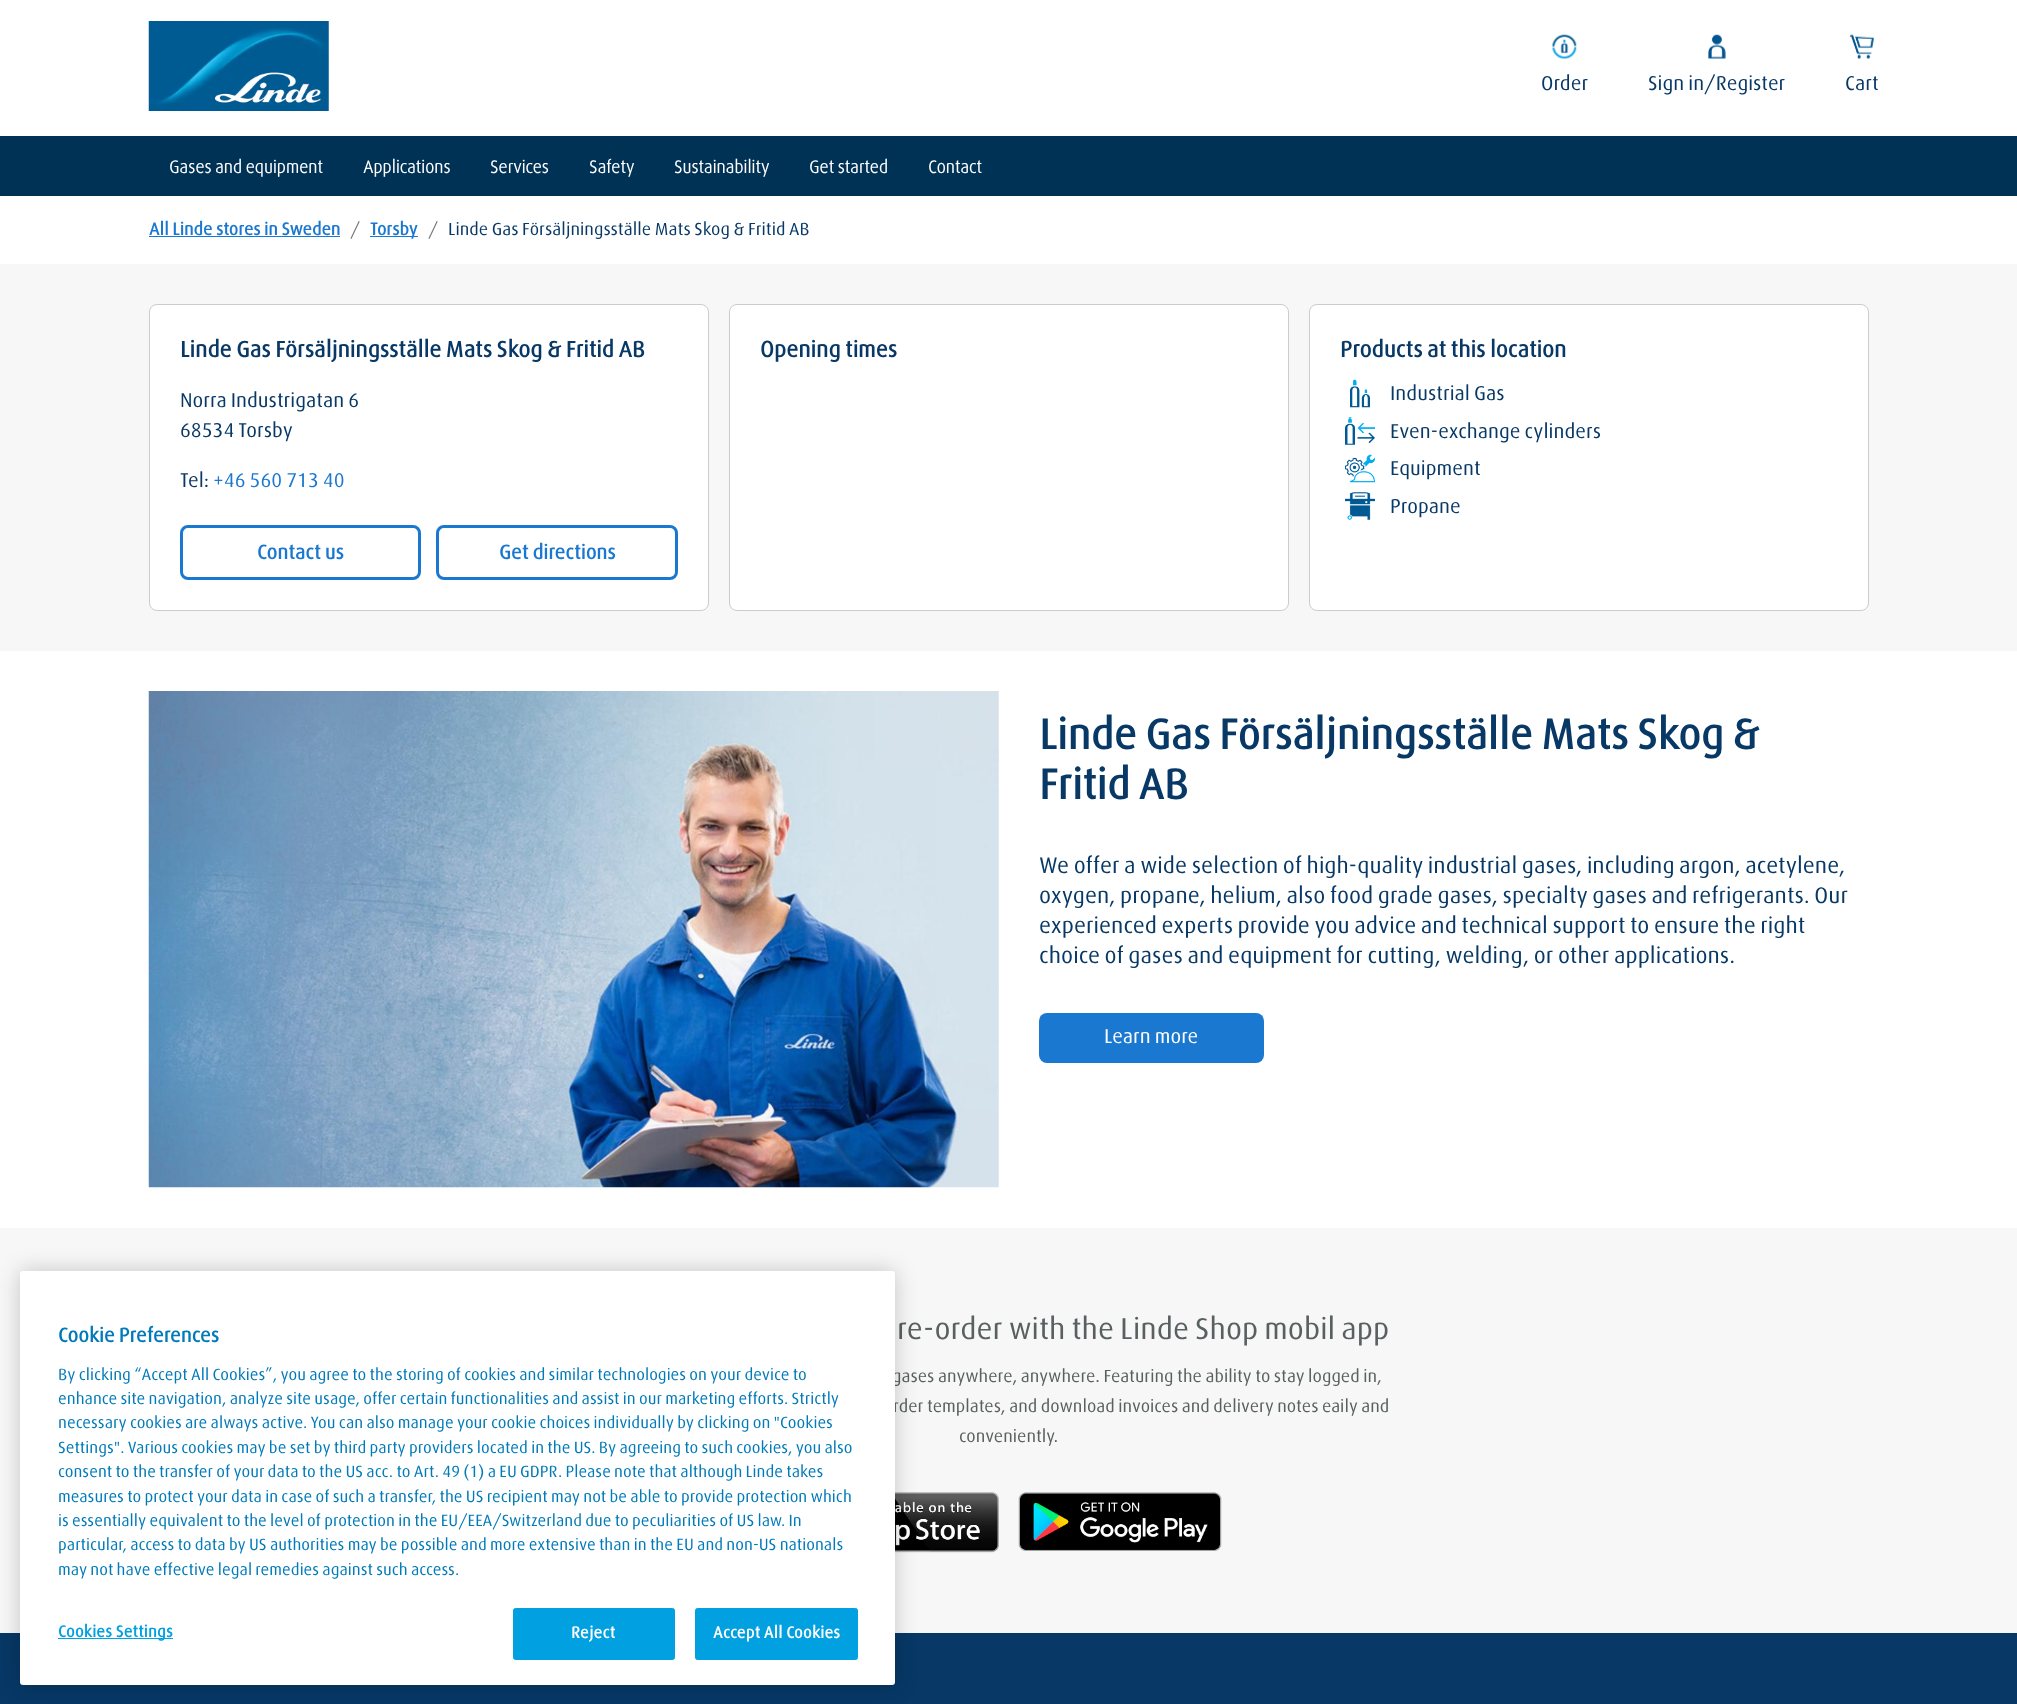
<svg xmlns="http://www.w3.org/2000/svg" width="2017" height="1704">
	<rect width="100%" height="100%" fill="#FFFFFF" />
	<image x="148" y="21" width="181" height="90" href="assets/img1.png" />
	<image x="1552" y="34" width="25" height="25" href="assets/img2.png" />
	<text x="1541" y="90" font-family="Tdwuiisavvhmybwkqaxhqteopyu" font-size="20" font-weight="500" fill="#073866">Order</text>
	<image x="1708" y="34" width="18" height="25" href="assets/img3.png" />
	<text x="1648" y="90" font-family="Tdwuiisavvhmybwkqaxhqteopyu" font-size="20" font-weight="500" fill="#073866">Sign in/Register</text>
	<image x="1850" y="34" width="24" height="25" href="assets/img4.png" />
	<text x="1845" y="90" font-family="Tdwuiisavvhmybwkqaxhqteopyu" font-size="20" font-weight="500" fill="#073866">Cart</text>
	<rect x="0" y="136" width="2017" height="60" fill="#003256" />
	<g font-family="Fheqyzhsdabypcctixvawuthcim" font-size="17.5" font-weight="700" fill="#FFFFFF">
		<text x="169" y="173">Gases and equipment</text>
		<text x="363" y="173">Applications</text>
		<text x="490" y="173">Services</text>
		<text x="589" y="173">Safety</text>
		<text x="674" y="173">Sustainability</text>
		<text x="809" y="173">Get started</text>
		<text x="928" y="173">Contact</text>
	</g>
	<text x="149" y="235" font-family="Tdwuiisavvhmybwkqaxhqteopyu" font-size="17.5" font-weight="700" fill="#1B78D0">All Linde stores in Sweden</text>
	<rect x="149" y="236" width="191" height="1" fill="#1B78D0" />
	<text x="350" y="235" font-family="Tdwuiisavvhmybwkqaxhqteopyu" font-size="17.5" font-weight="500" fill="#767676">/</text>
	<rect x="370" y="236" width="48" height="1" fill="#1B78D0" />
	<text x="370" y="235" font-family="Tdwuiisavvhmybwkqaxhqteopyu" font-size="17.5" font-weight="700" fill="#1B78D0">Torsby</text>
	<text x="428" y="235" font-family="Tdwuiisavvhmybwkqaxhqteopyu" font-size="17.5" font-weight="500" fill="#767676">/</text>
	<text x="448" y="235" font-family="Tdwuiisavvhmybwkqaxhqteopyu" font-size="17.5" font-weight="500" fill="#073866">Linde Gas Försäljningsställe Mats Skog &amp; Fritid AB</text>
	<rect x="0" y="264" width="2017" height="387" fill="#F7F7F7" />
	<rect x="149.5" y="304.5" width="559" height="306" rx="7.5" fill="#FFFFFF" stroke="#CCCCCC" />
	<text x="180" y="357" font-family="Tdwuiisavvhmybwkqaxhqteopyu" font-size="22.5" font-weight="700" fill="#073866">Linde Gas Försäljningsställe Mats Skog &amp; Fritid AB</text>
	<g font-family="Tdwuiisavvhmybwkqaxhqteopyu" font-size="20" font-weight="500" fill="#073866">
		<text x="180" y="407">Norra Industrigatan 6</text>
		<text x="180" y="437">68534 Torsby</text>
		<text x="180" y="487">Tel:</text>
	</g>
	<text x="213" y="487" font-family="Tdwuiisavvhmybwkqaxhqteopyu" font-size="20" font-weight="500" fill="#1B78D0">+46 560 713 40</text>
	<rect x="181.5" y="526.5" width="238" height="52" rx="6.5" fill="none" stroke="#1B78D0" stroke-width="3" />
	<text x="257" y="559" font-family="Tdwuiisavvhmybwkqaxhqteopyu" font-size="20" font-weight="700" fill="#1B78D0">Contact us</text>
	<rect x="437.5" y="526.5" width="239" height="52" rx="6.5" fill="none" stroke="#1B78D0" stroke-width="3" />
	<text x="499" y="559" font-family="Tdwuiisavvhmybwkqaxhqteopyu" font-size="20" font-weight="700" fill="#1B78D0">Get directions</text>
	<rect x="729.5" y="304.5" width="559" height="306" rx="7.5" fill="#FFFFFF" stroke="#CCCCCC" />
	<text x="760" y="357" font-family="Tdwuiisavvhmybwkqaxhqteopyu" font-size="22.5" font-weight="700" fill="#073866">Opening times</text>
	<rect x="1309.5" y="304.5" width="559" height="306" rx="7.5" fill="#FFFFFF" stroke="#CCCCCC" />
	<text x="1340" y="357" font-family="Tdwuiisavvhmybwkqaxhqteopyu" font-size="22.5" font-weight="700" fill="#073866">Products at this location</text>
	<image x="1350" y="379" width="20" height="29" href="assets/img5.png" />
	<text x="1390" y="400" font-family="Tdwuiisavvhmybwkqaxhqteopyu" font-size="20" font-weight="500" fill="#073866">Industrial Gas</text>
	<image x="1345" y="417" width="30" height="28" href="assets/img6.png" />
	<text x="1390" y="438" font-family="Tdwuiisavvhmybwkqaxhqteopyu" font-size="20" font-weight="500" fill="#073866">Even-exchange cylinders</text>
	<image x="1345" y="454" width="30" height="29" href="assets/img7.png" />
	<text x="1390" y="475" font-family="Tdwuiisavvhmybwkqaxhqteopyu" font-size="20" font-weight="500" fill="#073866">Equipment</text>
	<image x="1345" y="492" width="30" height="28" href="assets/img8.png" />
	<text x="1390" y="513" font-family="Tdwuiisavvhmybwkqaxhqteopyu" font-size="20" font-weight="500" fill="#073866">Propane</text>
	<image x="148" y="691" width="851" height="497" href="assets/img9.png" />
	<g font-family="Tdwuiisavvhmybwkqaxhqteopyu" font-size="42.5" font-weight="700" fill="#073866">
		<text x="1039" y="749">Linde Gas Försäljningsställe Mats Skog &amp;</text>
		<text x="1039" y="799">Fritid AB</text>
	</g>
	<g font-family="Tdwuiisavvhmybwkqaxhqteopyu" font-size="22.5" font-weight="500" fill="#073866">
		<text x="1039" y="873">We offer a wide selection of high-quality industrial gases, including argon, acetylene,</text>
		<text x="1039" y="903">oxygen, propane, helium, also food grade gases, specialty gases and refrigerants. Our</text>
		<text x="1039" y="933">experienced experts provide you advice and technical support to ensure the right</text>
		<text x="1039" y="963">choice of gases and equipment for cutting, welding, or other applications.</text>
	</g>
	<rect x="1039" y="1013" width="225" height="50" rx="8" fill="#1B78D0" />
	<text x="1104" y="1043" font-family="Tdwuiisavvhmybwkqaxhqteopyu" font-size="20" font-weight="500" fill="#FFFFFF">Learn more</text>
	<rect x="0" y="1228" width="2017" height="405" fill="#F7F7F7" />
	<text x="897" y="1339" font-family="Tdwuiisavvhmybwkqaxhqteopyu" font-size="30" font-weight="500" fill="#586060">re-order with the Linde Shop mobil app</text>
	<g font-family="Tdwuiisavvhmybwkqaxhqteopyu" font-size="17.5" font-weight="500" fill="#586060">
		<text x="892" y="1382">gases anywhere, anywhere. Featuring the ability to stay logged in,</text>
		<text x="893" y="1412">rder templates, and download invoices and delivery notes eaily and</text>
		<text x="959" y="1442">conveniently.</text>
	</g>
	<image x="895" y="1492" width="104" height="61" href="assets/img10.png" />
	<image x="1018" y="1492" width="204" height="59" href="assets/img11.png" />
	<rect x="0" y="1633" width="2017" height="71" fill="#073866" />
	<rect x="20" y="1271" width="875" height="414" rx="3" fill="#000000" fill-opacity="0.2" filter="blur(11px)" />
	<rect x="20" y="1271" width="875" height="414" rx="3" fill="#FFFFFF" />
	<text x="58" y="1342" font-family="Tdwuiisavvhmybwkqaxhqteopyu" font-size="20" font-weight="700" fill="#007AB9">Cookie Preferences</text>
	<g font-family="Tdwuiisavvhmybwkqaxhqteopyu" font-size="16.25" font-weight="500" fill="#007AB9">
		<text x="58" y="1380">By clicking “Accept All Cookies”, you agree to the storing of cookies and similar technologies on your device to</text>
		<text x="58" y="1404">enhance site navigation, analyze site usage, offer certain functionalities and assist in our marketing efforts. Strictly</text>
		<text x="58" y="1428">necessary cookies are always active. You can also manage your cookie choices individually by clicking on "Cookies</text>
		<text x="58" y="1453">Settings". Various cookies may be set by third party providers located in the US. By agreeing to such cookies, you also</text>
		<text x="58" y="1477">consent to the transfer of your data to the US acc. to Art. 49 (1) a EU GDPR. Please note that although Linde takes</text>
		<text x="58" y="1502">measures to protect your data in case of such a transfer, the US recipient may not be able to provide protection which</text>
		<text x="58" y="1526">is essentially equivalent to the level of protection in the EU/EEA/Switzerland due to peculiarities of US law. In</text>
		<text x="58" y="1550">particular, access to data by US authorities may be possible and more extensive than in the EU and non-US nationals</text>
		<text x="58" y="1575">may not have effective legal remedies against such access.</text>
	</g>
	<rect x="58" y="1638" width="115" height="1" fill="#00A0E1" />
	<text x="58" y="1637" font-family="Tdwuiisavvhmybwkqaxhqteopyu" font-size="16.25" font-weight="700" letter-spacing="0.2" fill="#00A0E1">Cookies Settings</text>
	<rect x="513.5" y="1608.5" width="161" height="51" rx="2" fill="#00A0E1" stroke="#00A0E1" />
	<text x="571" y="1638" font-family="Tdwuiisavvhmybwkqaxhqteopyu" font-size="16.25" font-weight="700" letter-spacing="0.2" fill="#FFFFFF">Reject</text>
	<rect x="695.5" y="1608.5" width="162" height="51" rx="2" fill="#00A0E1" stroke="#00A0E1" />
	<text x="713" y="1638" font-family="Tdwuiisavvhmybwkqaxhqteopyu" font-size="16.25" font-weight="700" letter-spacing="0.2" fill="#FFFFFF">Accept All Cookies</text>
</svg>
